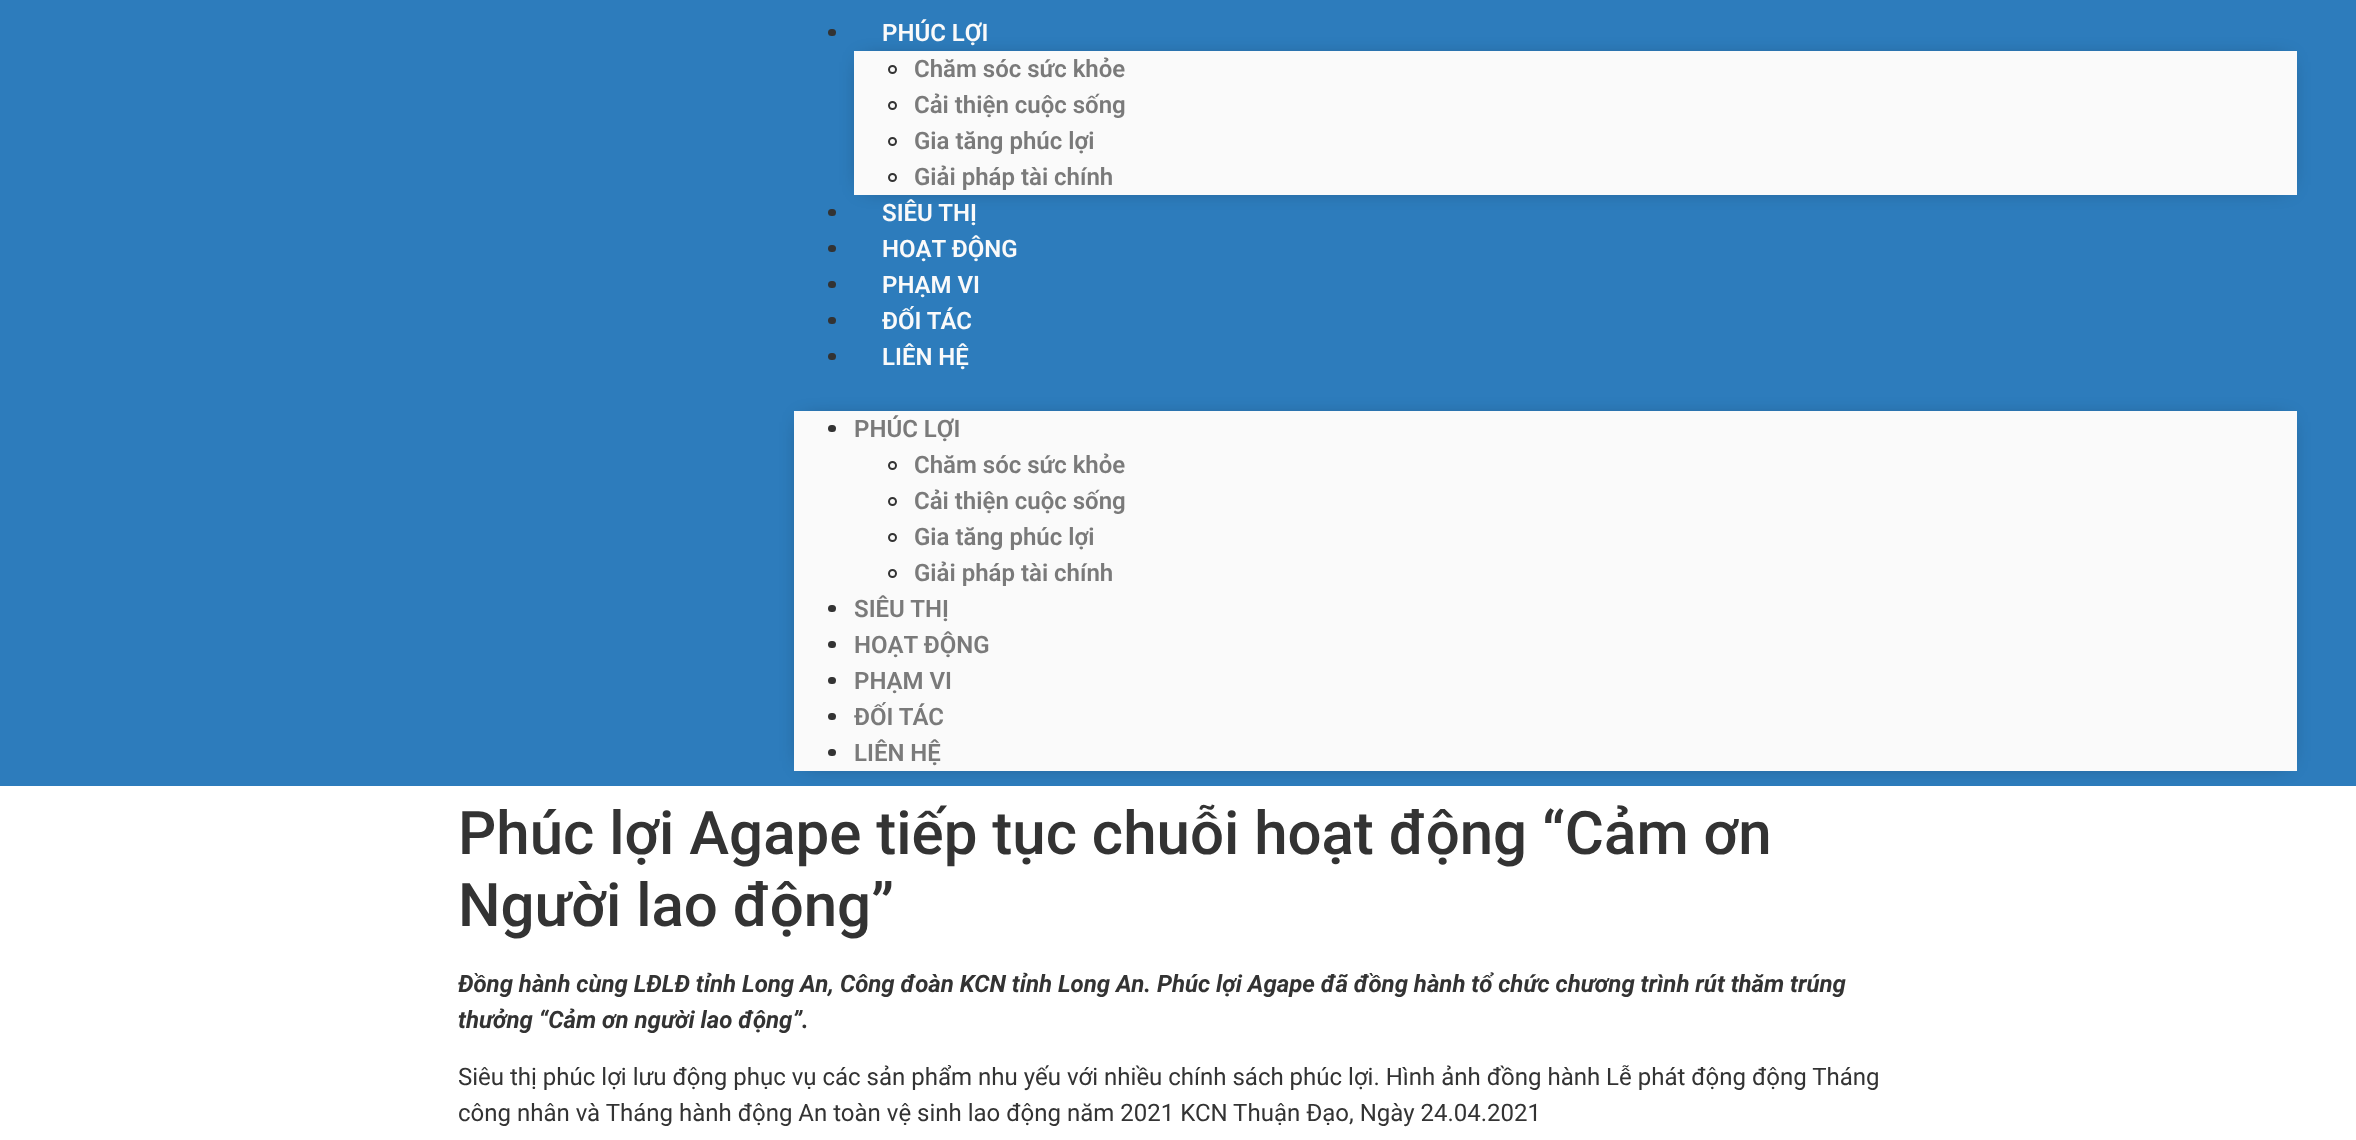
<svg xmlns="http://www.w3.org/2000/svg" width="2356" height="1140">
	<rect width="100%" height="100%" fill="#FFFFFF" />
	<rect x="0" y="0" width="2356" height="786" fill="#2D7CBC" />
	<rect x="864" y="62" width="1422" height="123" fill="#000000" fill-opacity="0.5" filter="blur(10.5px)" />
	<rect x="828" y="29" width="8" height="7" rx="3.5" fill="#333333" />
	<text x="882" y="41" font-family="Roboto" font-size="24" font-weight="600" fill="#FAFAFA">PHÚC LỢI</text>
	<rect x="854" y="51" width="1443" height="144" fill="#FAFAFA" />
	<circle cx="892.5" cy="69.5" r="3.5" fill="none" stroke="#333333" stroke-width="2" />
	<text x="914" y="77" font-family="Roboto" font-size="24" font-weight="600" fill="#7A7A7A">Chăm sóc sức khỏe</text>
	<circle cx="892.5" cy="105.5" r="3.5" fill="none" stroke="#333333" stroke-width="2" />
	<text x="914" y="113" font-family="Roboto" font-size="24" font-weight="600" fill="#7A7A7A">Cải thiện cuộc sống</text>
	<circle cx="892.5" cy="141.5" r="3.5" fill="none" stroke="#333333" stroke-width="2" />
	<text x="914" y="149" font-family="Roboto" font-size="24" font-weight="600" fill="#7A7A7A">Gia tăng phúc lợi</text>
	<circle cx="892.5" cy="177.5" r="3.5" fill="none" stroke="#333333" stroke-width="2" />
	<text x="914" y="185" font-family="Roboto" font-size="24" font-weight="600" fill="#7A7A7A">Giải pháp tài chính</text>
	<rect x="828" y="209" width="8" height="7" rx="3.5" fill="#333333" />
	<text x="882" y="221" font-family="Roboto" font-size="24" font-weight="600" fill="#FAFAFA">SIÊU THỊ</text>
	<rect x="828" y="245" width="8" height="7" rx="3.5" fill="#333333" />
	<text x="882" y="257" font-family="Roboto" font-size="24" font-weight="600" fill="#FAFAFA">HOẠT ĐỘNG</text>
	<rect x="828" y="281" width="8" height="7" rx="3.5" fill="#333333" />
	<text x="882" y="293" font-family="Roboto" font-size="24" font-weight="600" fill="#FAFAFA">PHẠM VI</text>
	<rect x="828" y="317" width="8" height="7" rx="3.5" fill="#333333" />
	<text x="882" y="329" font-family="Roboto" font-size="24" font-weight="600" fill="#FAFAFA">ĐỐI TÁC</text>
	<rect x="828" y="353" width="8" height="7" rx="3.5" fill="#333333" />
	<text x="882" y="365" font-family="Roboto" font-size="24" font-weight="600" fill="#FAFAFA">LIÊN HỆ</text>
	<rect x="804" y="422" width="1482" height="339" fill="#000000" fill-opacity="0.5" filter="blur(10.5px)" />
	<rect x="794" y="411" width="1503" height="360" fill="#FAFAFA" />
	<rect x="828" y="425" width="8" height="7" rx="3.5" fill="#333333" />
	<text x="854" y="437" font-family="Roboto" font-size="24" font-weight="600" fill="#7A7A7A">PHÚC LỢI</text>
	<circle cx="892.5" cy="465.5" r="3.5" fill="none" stroke="#333333" stroke-width="2" />
	<text x="914" y="473" font-family="Roboto" font-size="24" font-weight="600" fill="#7A7A7A">Chăm sóc sức khỏe</text>
	<circle cx="892.5" cy="501.5" r="3.5" fill="none" stroke="#333333" stroke-width="2" />
	<text x="914" y="509" font-family="Roboto" font-size="24" font-weight="600" fill="#7A7A7A">Cải thiện cuộc sống</text>
	<circle cx="892.5" cy="537.5" r="3.5" fill="none" stroke="#333333" stroke-width="2" />
	<text x="914" y="545" font-family="Roboto" font-size="24" font-weight="600" fill="#7A7A7A">Gia tăng phúc lợi</text>
	<circle cx="892.5" cy="573.5" r="3.5" fill="none" stroke="#333333" stroke-width="2" />
	<text x="914" y="581" font-family="Roboto" font-size="24" font-weight="600" fill="#7A7A7A">Giải pháp tài chính</text>
	<rect x="828" y="605" width="8" height="7" rx="3.5" fill="#333333" />
	<text x="854" y="617" font-family="Roboto" font-size="24" font-weight="600" fill="#7A7A7A">SIÊU THỊ</text>
	<rect x="828" y="641" width="8" height="7" rx="3.5" fill="#333333" />
	<text x="854" y="653" font-family="Roboto" font-size="24" font-weight="600" fill="#7A7A7A">HOẠT ĐỘNG</text>
	<rect x="828" y="677" width="8" height="7" rx="3.5" fill="#333333" />
	<text x="854" y="689" font-family="Roboto" font-size="24" font-weight="600" fill="#7A7A7A">PHẠM VI</text>
	<rect x="828" y="713" width="8" height="7" rx="3.5" fill="#333333" />
	<text x="854" y="725" font-family="Roboto" font-size="24" font-weight="600" fill="#7A7A7A">ĐỐI TÁC</text>
	<rect x="828" y="749" width="8" height="7" rx="3.5" fill="#333333" />
	<text x="854" y="761" font-family="Roboto" font-size="24" font-weight="600" fill="#7A7A7A">LIÊN HỆ</text>
	<g font-family="Roboto" font-size="60" font-weight="500" fill="#333333">
		<text x="458" y="854">Phúc lợi Agape tiếp tục chuỗi hoạt động “Cảm ơn</text>
		<text x="458" y="926">Người lao động”</text>
	</g>
	<g font-family="Roboto" font-size="24" font-weight="700" font-style="italic" fill="#333333">
		<text x="458" y="992">Đồng hành cùng LĐLĐ tỉnh Long An, Công đoàn KCN tỉnh Long An. Phúc lợi Agape đã đồng hành tổ chức chương trình rút thăm trúng</text>
		<text x="458" y="1028">thưởng “Cảm ơn người lao động”.</text>
	</g>
	<g font-family="Roboto" font-size="24" fill="#333333">
		<text x="458" y="1085">Siêu thị phúc lợi lưu động phục vụ các sản phẩm nhu yếu với nhiều chính sách phúc lợi. Hình ảnh đồng hành Lễ phát động động Tháng</text>
		<text x="458" y="1121">công nhân và Tháng hành động An toàn vệ sinh lao động năm 2021 KCN Thuận Đạo, Ngày 24.04.2021</text>
	</g>
</svg>
